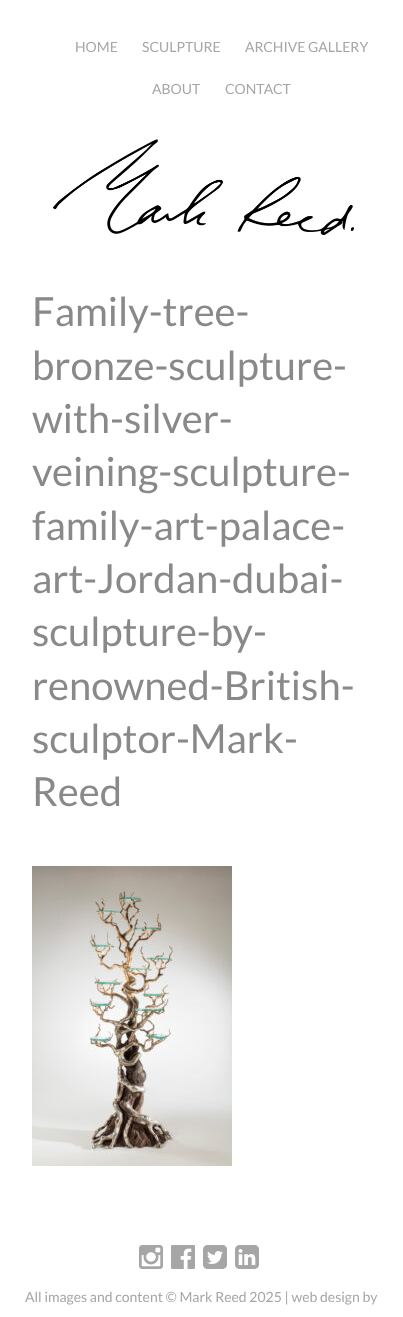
<svg xmlns="http://www.w3.org/2000/svg" width="403" height="1317">
	<rect width="100%" height="100%" fill="#FFFFFF" />
	<g font-family="Lato" font-size="14" fill="#A6A6A6">
		<text x="75" y="52">HOME</text>
		<text x="142" y="52">SCULPTURE</text>
		<text x="245" y="52">ARCHIVE GALLERY</text>
		<text x="152" y="94">ABOUT</text>
		<text x="225" y="94">CONTACT</text>
	</g>
	<image x="53" y="139" width="301" height="96" href="assets/img1.png" />
	<g font-family="Lato" font-size="40" fill="#898989">
		<text x="32" y="326">Family-tree-</text>
		<text x="32" y="380">bronze-sculpture-</text>
		<text x="32" y="433">with-silver-</text>
		<text x="32" y="486">veining-sculpture-</text>
		<text x="32" y="540">family-art-palace-</text>
		<text x="32" y="593">art-Jordan-dubai-</text>
		<text x="32" y="646">sculpture-by-</text>
		<text x="32" y="700">renowned-British-</text>
		<text x="32" y="753">sculptor-Mark-</text>
		<text x="32" y="806">Reed</text>
	</g>
	<image x="32" y="866" width="200" height="300" href="assets/img2.png" />
	<image x="139" y="1245" width="24" height="24" href="assets/img3.png" />
	<image x="171" y="1245" width="24" height="24" href="assets/img4.png" />
	<image x="203" y="1245" width="24" height="24" href="assets/img5.png" />
	<image x="235" y="1245" width="24" height="24" href="assets/img6.png" />
	<text x="25" y="1302" font-family="Lato" font-size="14" fill="#A6A6A6">All images and content © Mark Reed 2025 | web design by</text>
</svg>
